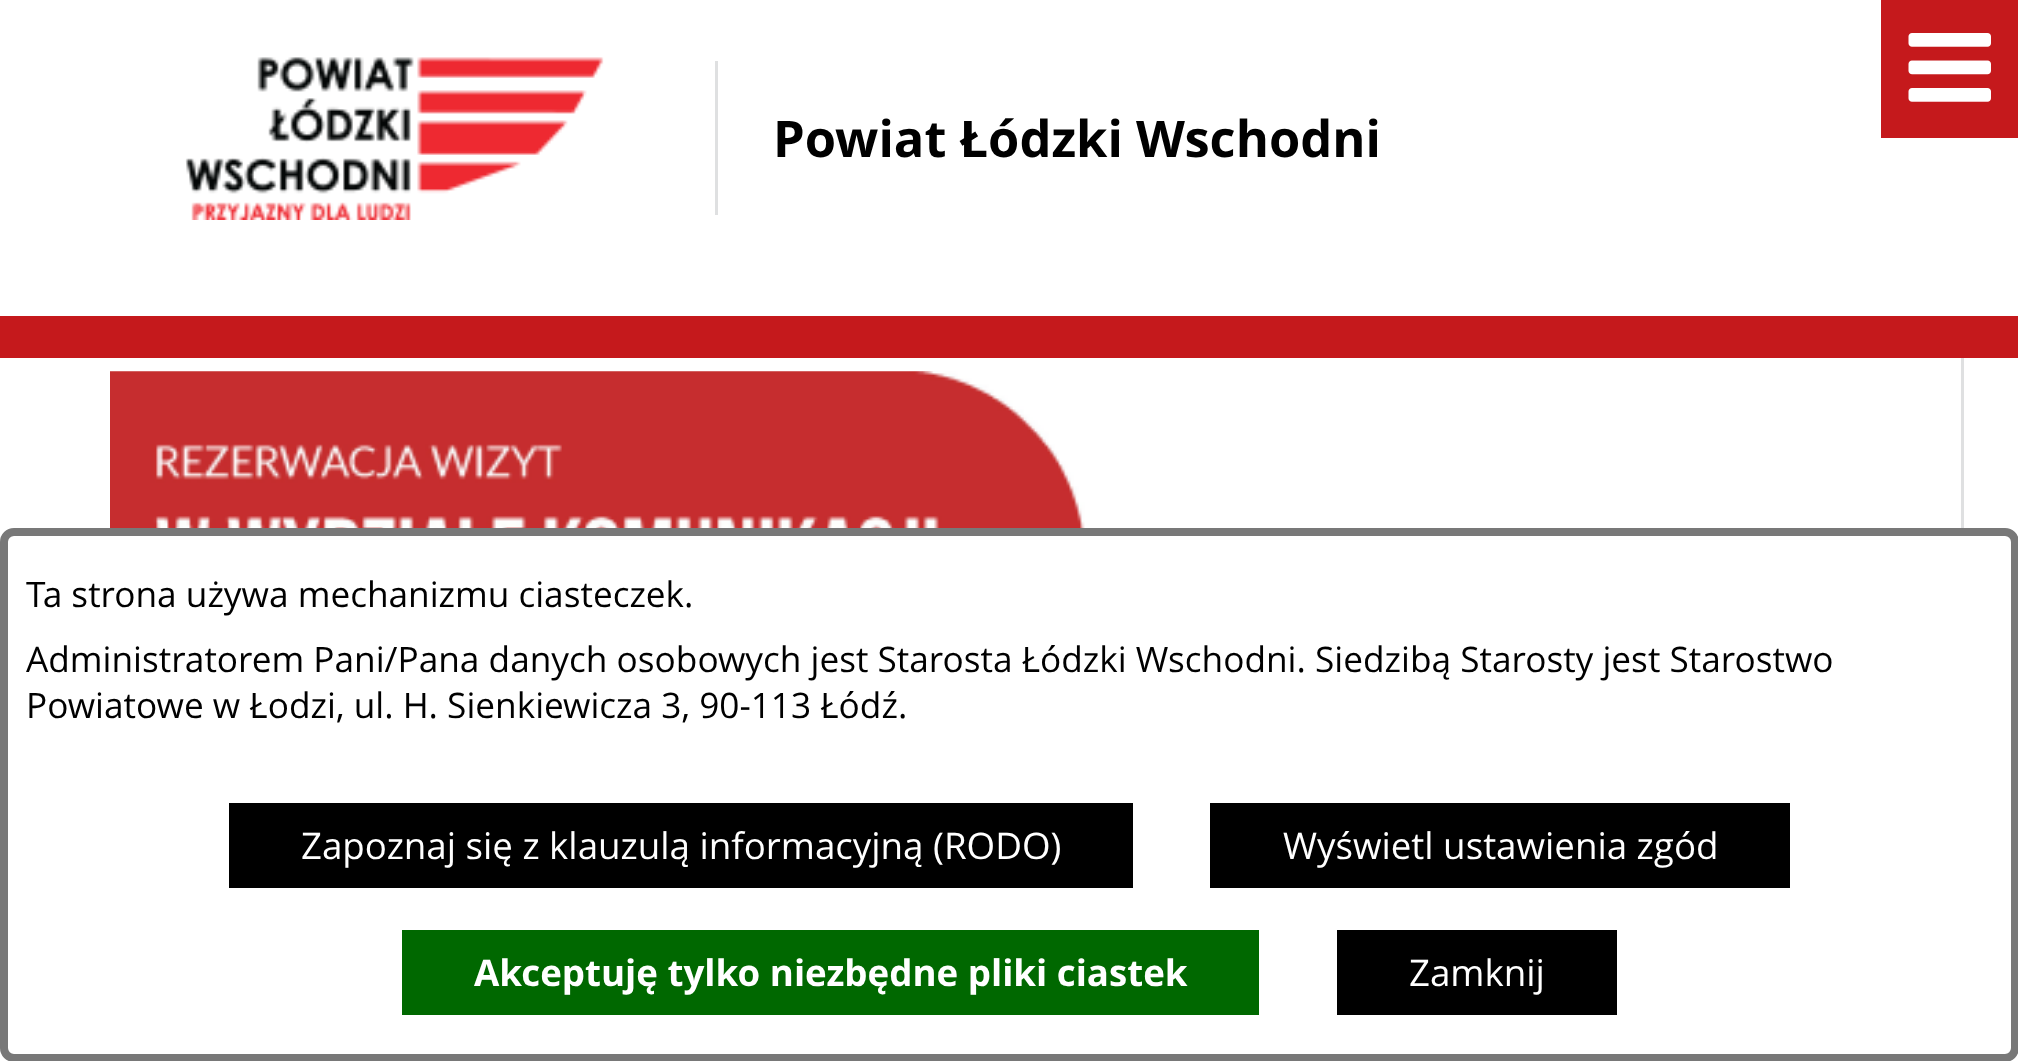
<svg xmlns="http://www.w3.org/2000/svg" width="2018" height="1061">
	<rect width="100%" height="100%" fill="#FFFFFF" />
	<image x="185" y="57" width="419" height="163" href="assets/img1.png" />
	<rect x="715" y="61" width="3" height="154" fill="#DFE0E1" />
	<text x="773" y="157" font-family="Open Sans" font-size="50.6" font-weight="700" fill="#000000">Powiat Łódzki Wschodni</text>
	<rect x="1881" y="0" width="137" height="138" fill="#C5191C" />
	<image x="1908" y="33" width="83" height="69" href="assets/img2.png" />
	<rect x="0" y="316" width="2018" height="42" fill="#C5191C" />
	<rect x="1961" y="358" width="3" height="170" fill="#DFE0E1" />
	<image x="110" y="371" width="977" height="157" href="assets/img3.png" />
	<rect x="4" y="532" width="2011" height="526" rx="10" fill="none" stroke="#787878" stroke-width="8" />
	<g font-family="Open Sans" font-size="35.2" fill="#000000">
		<text x="26" y="607">Ta strona używa mechanizmu ciasteczek.</text>
		<text x="26" y="672">Administratorem Pani/Pana danych osobowych jest Starosta Łódzki Wschodni. Siedzibą Starosty jest Starostwo</text>
		<text x="26" y="718">Powiatowe w Łodzi, ul. H. Sienkiewicza 3, 90-113 Łódź.</text>
	</g>
	<rect x="229" y="803" width="904" height="85" fill="#000000" />
	<text x="301" y="859" font-family="Open Sans" font-size="36.7" fill="#FFFFFF">Zapoznaj się z klauzulą informacyjną (RODO)</text>
	<rect x="1210" y="803" width="580" height="85" fill="#000000" />
	<text x="1283" y="859" font-family="Open Sans" font-size="36.7" fill="#FFFFFF">Wyświetl ustawienia zgód</text>
	<rect x="402" y="930" width="857" height="85" fill="#006800" />
	<text x="474" y="986" font-family="Open Sans" font-size="36.7" font-weight="700" fill="#FFFFFF">Akceptuję tylko niezbędne pliki ciastek</text>
	<rect x="1337" y="930" width="280" height="85" fill="#000000" />
	<text x="1409" y="986" font-family="Open Sans" font-size="36.7" fill="#FFFFFF">Zamknij</text>
</svg>
